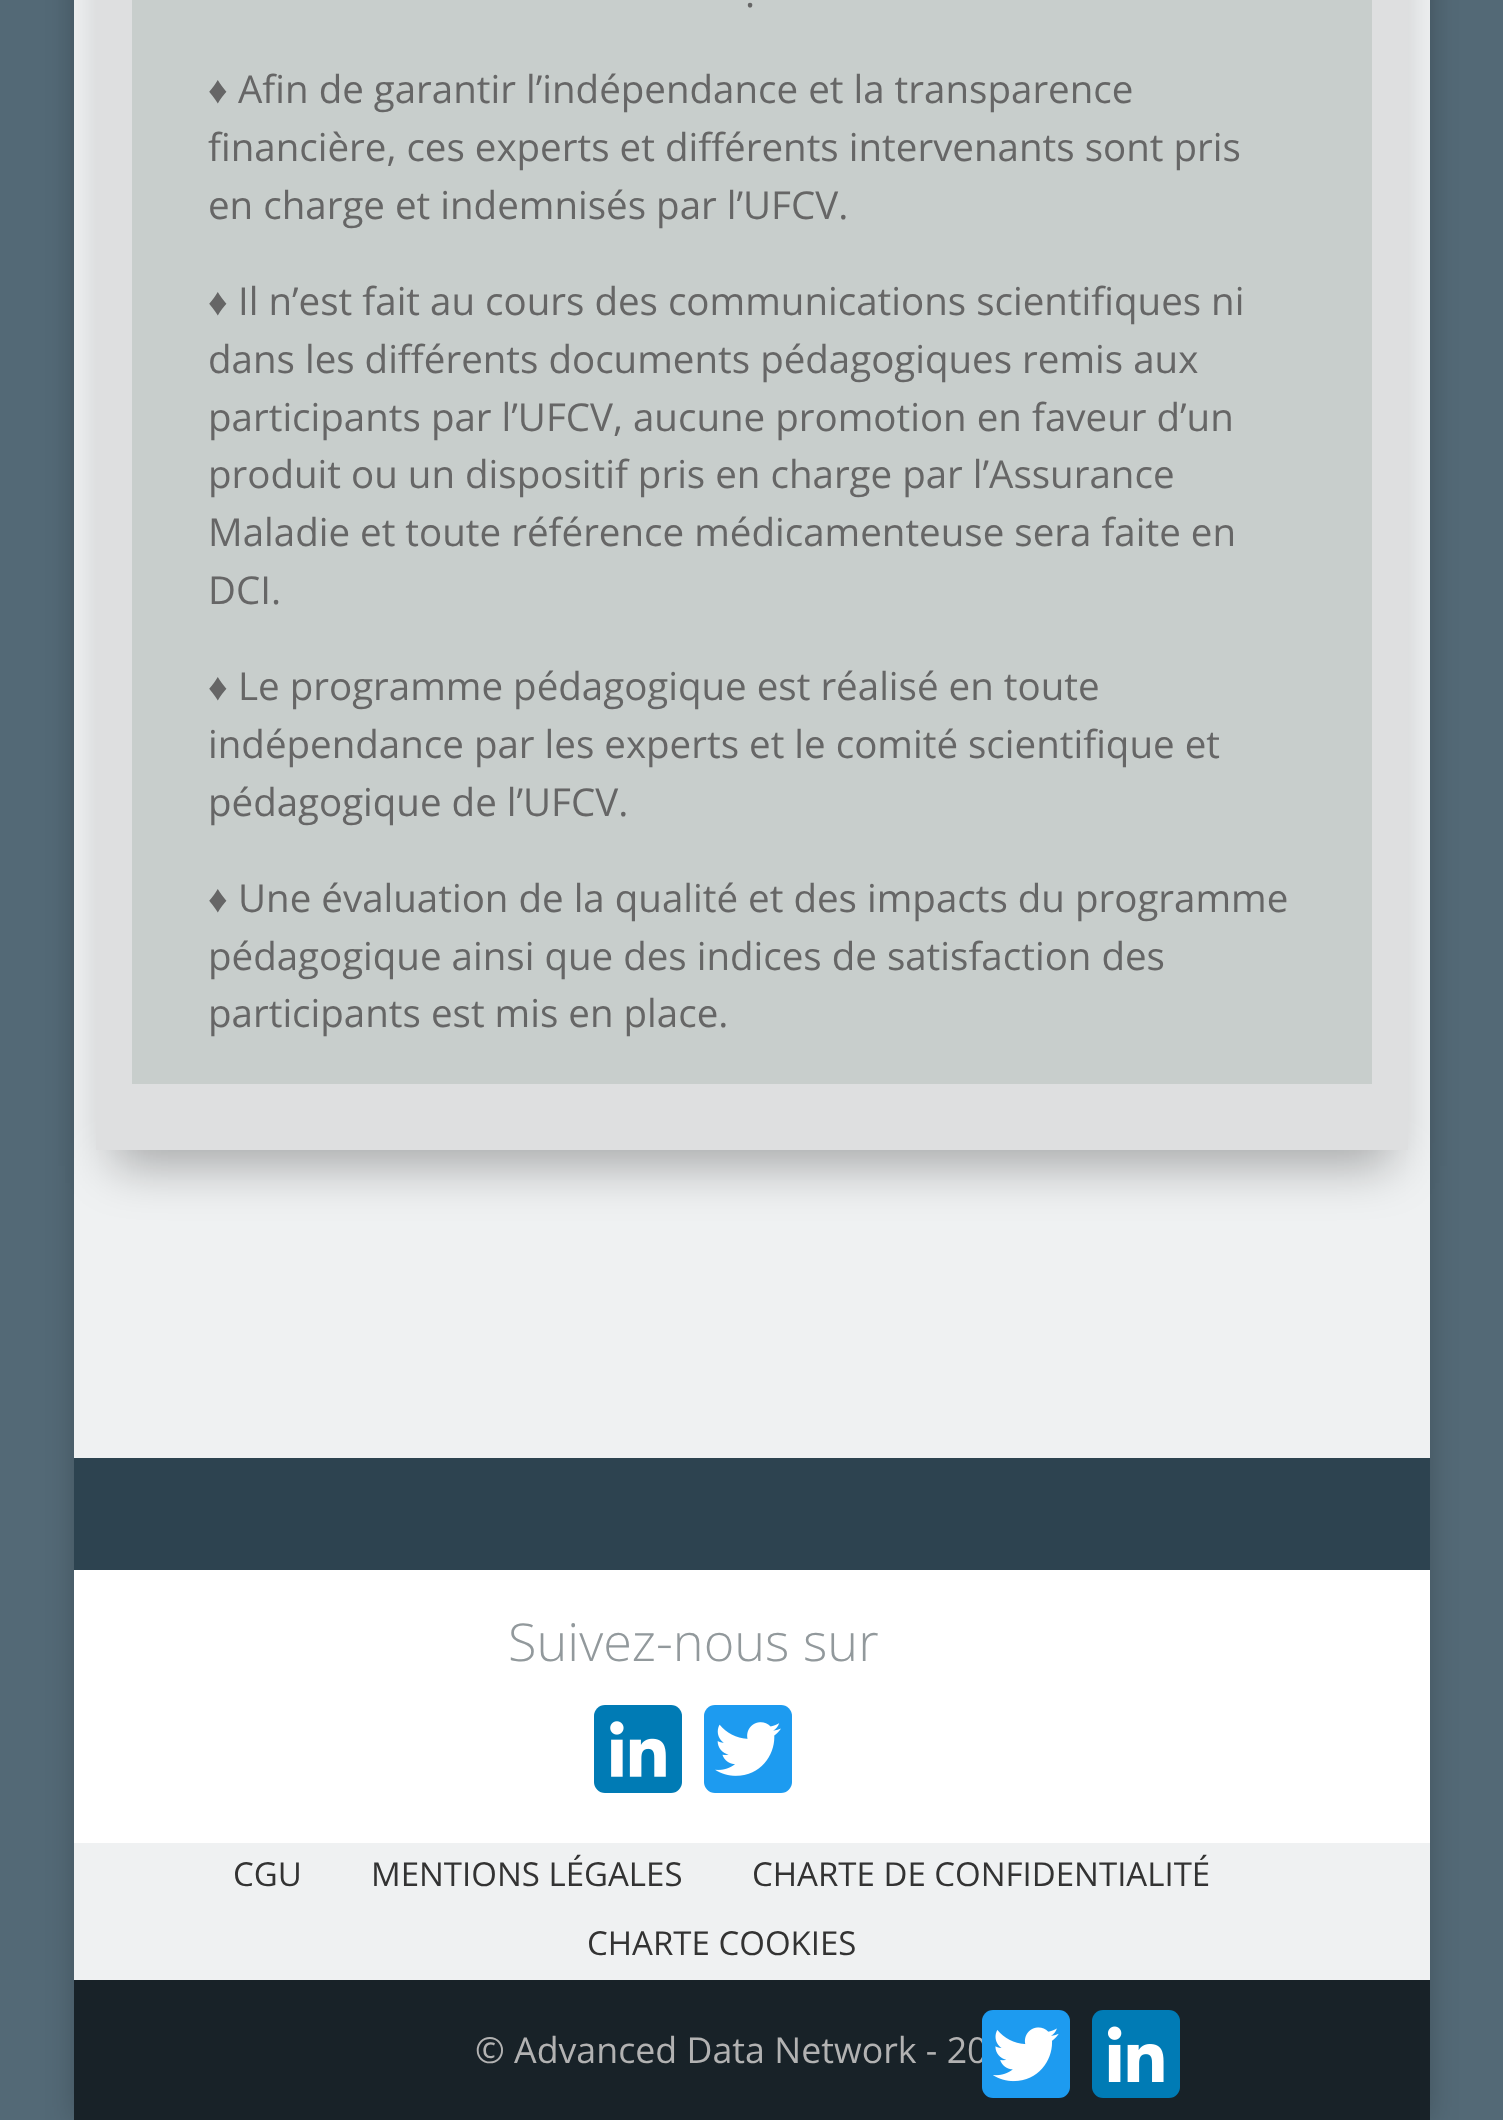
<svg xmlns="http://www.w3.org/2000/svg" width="1503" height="2120">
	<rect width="100%" height="100%" fill="#536976" />
	<rect x="74" y="-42" width="1356" height="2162" fill="#000000" fill-opacity="0.2" filter="blur(14px)" />
	<rect x="74" y="0" width="1356" height="1458" fill="#EFF1F2" />
	<rect x="113" y="-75" width="1279" height="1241" fill="#000000" fill-opacity="0.3" filter="blur(25px)" />
	<rect x="96" y="0" width="1312" height="1150" fill="#DEDFE0" />
	<rect x="132" y="0" width="1240" height="1084" fill="#C8CECC" />
	<text x="745" y="7" font-family="Open Sans" font-size="38.5" fill="#666666">.</text>
	<text x="208" y="103" font-family="Liberation Sans" font-size="38.5" fill="#666666">♦</text>
	<g font-family="Open Sans" font-size="38.5" fill="#666666">
		<text x="238" y="103">Afin de garantir l’indépendance et la transparence</text>
		<text x="208" y="161">financière, ces experts et différents intervenants sont pris</text>
		<text x="208" y="219">en charge et indemnisés par l’UFCV.</text>
	</g>
	<text x="208" y="315" font-family="Liberation Sans" font-size="38.5" fill="#666666">♦</text>
	<g font-family="Open Sans" font-size="38.5" fill="#666666">
		<text x="238" y="315">Il n’est fait au cours des communications scientifiques ni</text>
		<text x="208" y="373">dans les différents documents pédagogiques remis aux</text>
		<text x="208" y="431">participants par l’UFCV, aucune promotion en faveur d’un</text>
		<text x="208" y="488">produit ou un dispositif pris en charge par l’Assurance</text>
		<text x="208" y="546">Maladie et toute référence médicamenteuse sera faite en</text>
		<text x="208" y="604">DCI.</text>
	</g>
	<text x="208" y="700" font-family="Liberation Sans" font-size="38.5" fill="#666666">♦</text>
	<g font-family="Open Sans" font-size="38.5" fill="#666666">
		<text x="238" y="700">Le programme pédagogique est réalisé en toute</text>
		<text x="208" y="758">indépendance par les experts et le comité scientifique et</text>
		<text x="208" y="816">pédagogique de l’UFCV.</text>
	</g>
	<text x="208" y="912" font-family="Liberation Sans" font-size="38.5" fill="#666666">♦</text>
	<g font-family="Open Sans" font-size="38.5" fill="#666666">
		<text x="238" y="912">Une évaluation de la qualité et des impacts du programme</text>
		<text x="208" y="970">pédagogique ainsi que des indices de satisfaction des</text>
		<text x="208" y="1027">participants est mis en place.</text>
	</g>
	<rect x="74" y="1458" width="1356" height="112" fill="#2D4350" />
	<rect x="74" y="1570" width="1356" height="273" fill="#FFFFFF" />
	<text x="508" y="1661" font-family="Open Sans" font-size="52.25" font-weight="300" fill="#92999C">Suivez-nous sur</text>
	<rect x="594" y="1705" width="88" height="88" rx="11" fill="#007BB5" />
	<image x="610" y="1721" width="56" height="56" href="assets/img1.png" />
	<rect x="704" y="1705" width="88" height="88" rx="11" fill="#1D9BF0" />
	<image x="715" y="1722" width="66" height="54" href="assets/img2.png" />
	<rect x="74" y="1843" width="1356" height="137" fill="#EFF1F2" />
	<g font-family="Open Sans" font-size="33" fill="#333333">
		<text x="233" y="1886">CGU</text>
		<text x="371" y="1886">MENTIONS LÉGALES</text>
		<text x="752" y="1886">CHARTE DE CONFIDENTIALITÉ</text>
		<text x="587" y="1955">CHARTE COOKIES</text>
	</g>
	<rect x="74" y="1980" width="1356" height="140" fill="#182228" />
	<text x="475" y="2063" font-family="Open Sans" font-size="35.75" fill="#B2B2B2">© Advanced Data Network - 20</text>
	<rect x="982" y="2010" width="88" height="88" rx="11" fill="#1D9BF0" />
	<image x="993" y="2027" width="66" height="55" href="assets/img3.png" />
	<rect x="1092" y="2010" width="88" height="88" rx="11" fill="#007BB5" />
	<image x="1108" y="2026" width="56" height="56" href="assets/img4.png" />
</svg>
